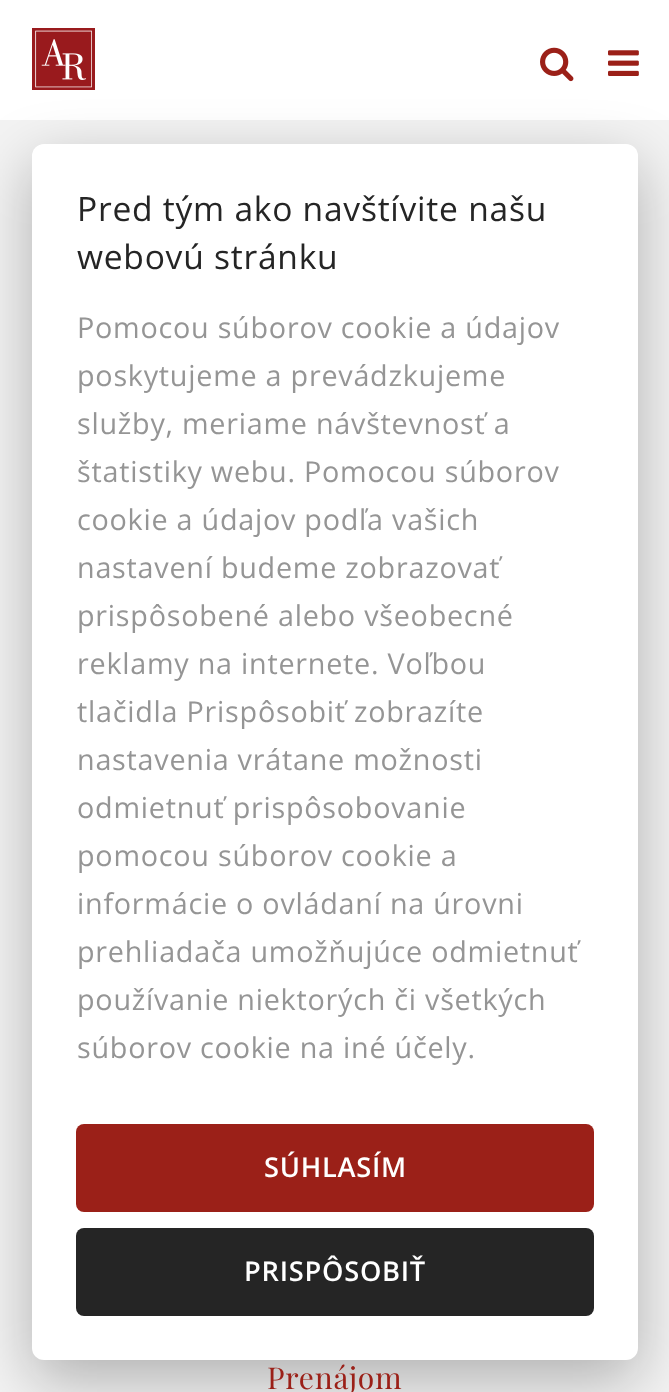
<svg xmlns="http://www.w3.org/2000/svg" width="669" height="1392">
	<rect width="100%" height="100%" fill="#F3F3F3" />
	<rect x="0" y="0" width="669" height="120" fill="#FFFFFF" />
	<image x="32" y="28" width="63" height="62" href="assets/img1.png" />
	<image x="540" y="47" width="34" height="35" href="assets/img2.png" />
	<image x="608" y="50" width="31" height="26" href="assets/img3.png" />
	<rect x="32" y="164" width="606" height="1216" rx="12" fill="#020203" fill-opacity="0.28" filter="blur(30px)" />
	<rect x="32" y="144" width="606" height="1216" rx="12" fill="#FFFFFF" />
	<g font-family="Open Sans" font-size="33.6" letter-spacing="0.75" fill="#252525">
		<text x="77" y="221">Pred tým ako navštívite našu</text>
		<text x="77" y="269">webovú stránku</text>
	</g>
	<g font-family="Open Sans" font-size="28.75" letter-spacing="0.75" fill="#959595">
		<text x="77" y="338">Pomocou súborov cookie a údajov</text>
		<text x="77" y="386">poskytujeme a prevádzkujeme</text>
		<text x="77" y="434">služby, meriame návštevnosť a</text>
		<text x="77" y="482">štatistiky webu. Pomocou súborov</text>
		<text x="77" y="530">cookie a údajov podľa vašich</text>
		<text x="77" y="578">nastavení budeme zobrazovať</text>
		<text x="77" y="626">prispôsobené alebo všeobecné</text>
		<text x="77" y="674">reklamy na internete. Voľbou</text>
		<text x="77" y="722">tlačidla Prispôsobiť zobrazíte</text>
		<text x="77" y="770">nastavenia vrátane možnosti</text>
		<text x="77" y="818">odmietnuť prispôsobovanie</text>
		<text x="77" y="866">pomocou súborov cookie a</text>
		<text x="77" y="914">informácie o ovládaní na úrovni</text>
		<text x="77" y="962">prehliadača umožňujúce odmietnuť</text>
		<text x="77" y="1010">používanie niektorých či všetkých</text>
		<text x="77" y="1058">súborov cookie na iné účely.</text>
	</g>
	<rect x="76" y="1124" width="518" height="88" rx="8" fill="#9B2018" />
	<text x="264" y="1177" font-family="Open Sans" font-size="27.25" font-weight="600" letter-spacing="0.75" fill="#FFFFFF">SÚHLASÍM</text>
	<rect x="76" y="1228" width="518" height="88" rx="8" fill="#252525" />
	<text x="244" y="1281" font-family="Open Sans" font-size="27.25" font-weight="600" letter-spacing="0.75" fill="#FFFFFF">PRISPÔSOBIŤ</text>
	<text x="267" y="1389" font-family="Playfair Display" font-size="30" letter-spacing="0.75" fill="#9B2018">Prenájom</text>
</svg>
